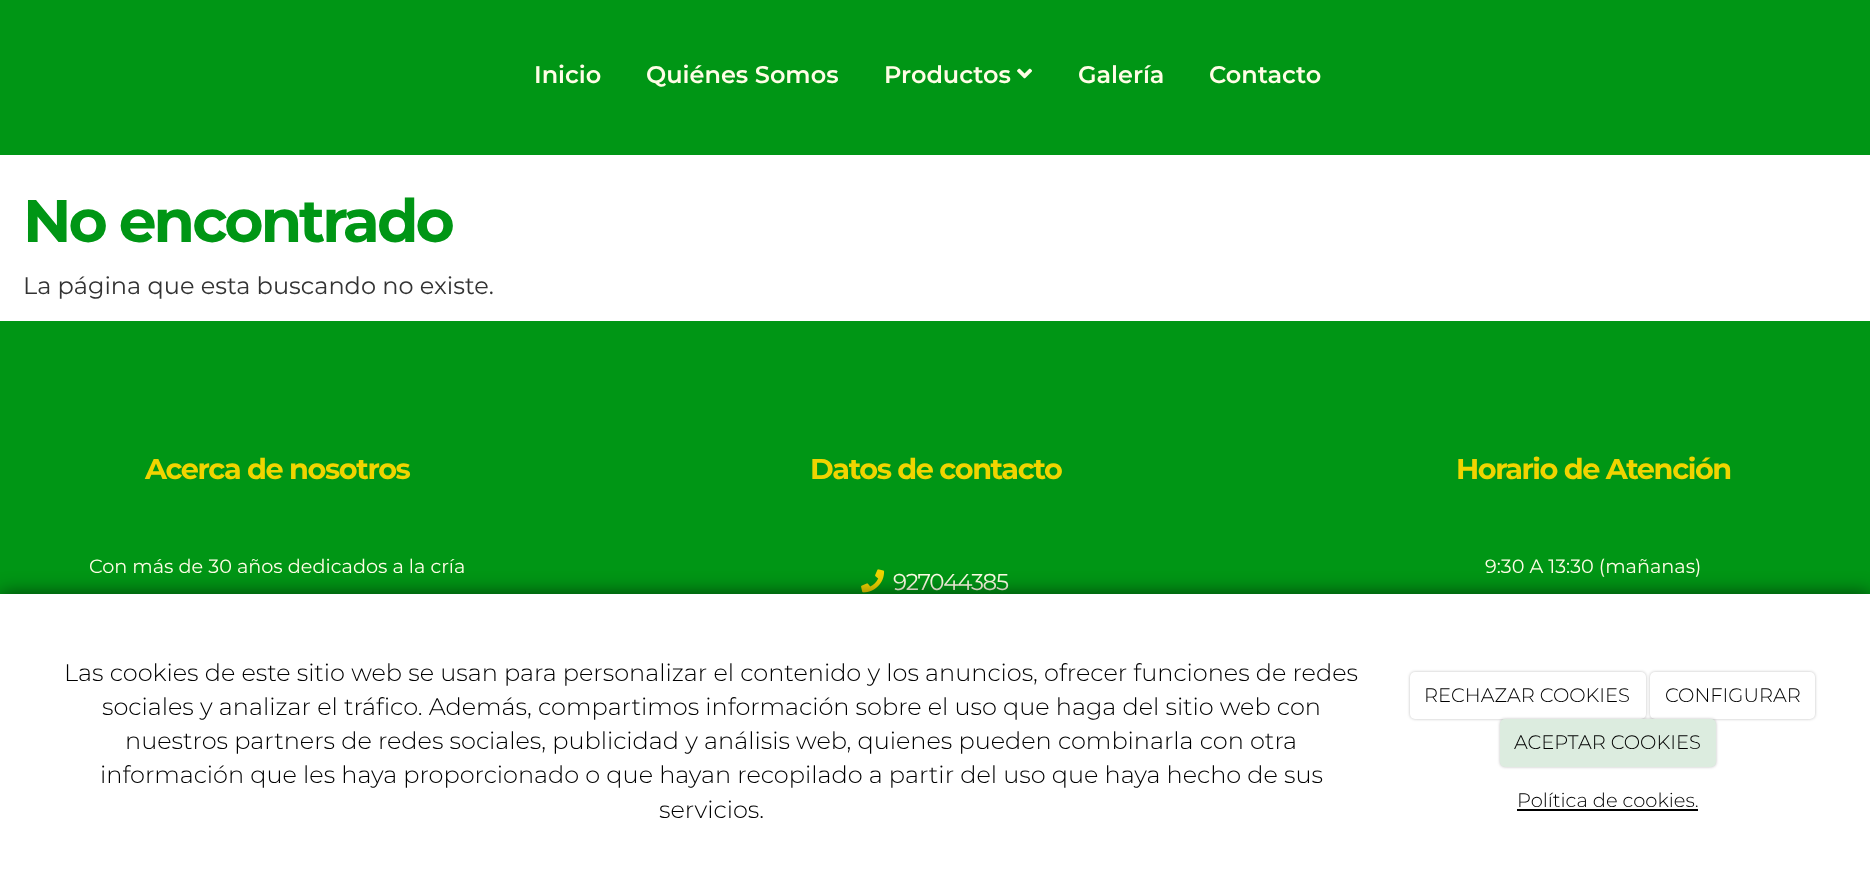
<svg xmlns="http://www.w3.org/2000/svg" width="1870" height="890">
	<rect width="100%" height="100%" fill="#FFFFFF" />
	<rect x="0" y="0" width="1870" height="155" fill="#009615" />
	<g font-family="Montserrat" font-size="24" font-weight="600" fill="#FFFDE6">
		<text x="534" y="83">Inicio</text>
		<text x="646" y="83">Quiénes Somos</text>
		<text x="884" y="83">Productos</text>
	</g>
	<image x="1017" y="68" width="15" height="11" href="assets/img1.png" />
	<g font-family="Montserrat" font-size="24" font-weight="600" fill="#FFFDE6">
		<text x="1078" y="83">Galería</text>
		<text x="1209" y="83">Contacto</text>
	</g>
	<text x="23" y="242" font-family="Montserrat" font-size="60" font-weight="700" letter-spacing="-3" fill="#009615">No encontrado</text>
	<text x="23" y="294" font-family="Montserrat" font-size="24" fill="#333333">La página que esta buscando no existe.</text>
	<rect x="0" y="321" width="1870" height="273" fill="#009615" />
	<text x="145" y="479" font-family="Montserrat" font-size="28.75" font-weight="700" letter-spacing="-1.4" fill="#F0D400">Acerca de nosotros</text>
	<text x="89" y="573" font-family="Montserrat" font-size="19.25" fill="#FFFDE6">Con más de 30 años dedicados a la cría</text>
	<text x="810" y="479" font-family="Montserrat" font-size="28.75" font-weight="700" letter-spacing="-1.4" fill="#F0D400">Datos de contacto</text>
	<image x="861" y="569" width="24" height="24" href="assets/img2.png" />
	<text x="893" y="590" font-family="Montserrat" font-size="23" letter-spacing="-1.25" fill="#FFFDE6">927044385</text>
	<text x="1456" y="479" font-family="Montserrat" font-size="28.75" font-weight="700" letter-spacing="-1.4" fill="#F0D400">Horario de Atención</text>
	<text x="1485" y="573" font-family="Montserrat" font-size="19.25" fill="#FFFDE6">9:30 A 13:30 (mañanas)</text>
	<rect x="0" y="594" width="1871" height="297" fill="#000000" fill-opacity="0.6" filter="blur(10px)" />
	<rect x="0" y="594" width="1870" height="296" fill="#FFFFFF" />
	<g font-family="Montserrat" font-size="24" font-weight="300" fill="#000000">
		<text x="64" y="681">Las cookies de este sitio web se usan para personalizar el contenido y los anuncios, ofrecer funciones de redes</text>
		<text x="102" y="715">sociales y analizar el tráfico. Además, compartimos información sobre el uso que haga del sitio web con</text>
		<text x="125" y="749">nuestros partners de redes sociales, publicidad y análisis web, quienes pueden combinarla con otra</text>
		<text x="100" y="783">información que les haya proporcionado o que hayan recopilado a partir del uso que haya hecho de sus</text>
		<text x="659" y="818">servicios.</text>
	</g>
	<rect x="1410" y="672" width="236" height="47" rx="5" fill="#000000" fill-opacity="0.25" filter="blur(1.5px)" />
	<rect x="1410" y="672" width="236" height="47" rx="5" fill="#FFFFFF" />
	<text x="1424" y="702" font-family="Montserrat" font-size="19.5" font-weight="300" fill="#000000">RECHAZAR COOKIES</text>
	<rect x="1650" y="672" width="165" height="47" rx="5" fill="#000000" fill-opacity="0.25" filter="blur(1.5px)" />
	<rect x="1650" y="672" width="165" height="47" rx="5" fill="#FFFFFF" />
	<text x="1665" y="702" font-family="Montserrat" font-size="19.5" font-weight="300" fill="#000000">CONFIGURAR</text>
	<rect x="1500" y="719" width="216" height="48" rx="5" fill="#000000" fill-opacity="0.25" filter="blur(1.5px)" />
	<rect x="1500" y="719" width="216" height="48" rx="5" fill="#DCECDF" />
	<g font-family="Montserrat" font-size="19.5" font-weight="300" fill="#000000">
		<text x="1514" y="749">ACEPTAR COOKIES</text>
		<text x="1517" y="807">Política de cookies.</text>
	</g>
	<rect x="1517" y="809" width="181" height="2" fill="#000000" />
</svg>
